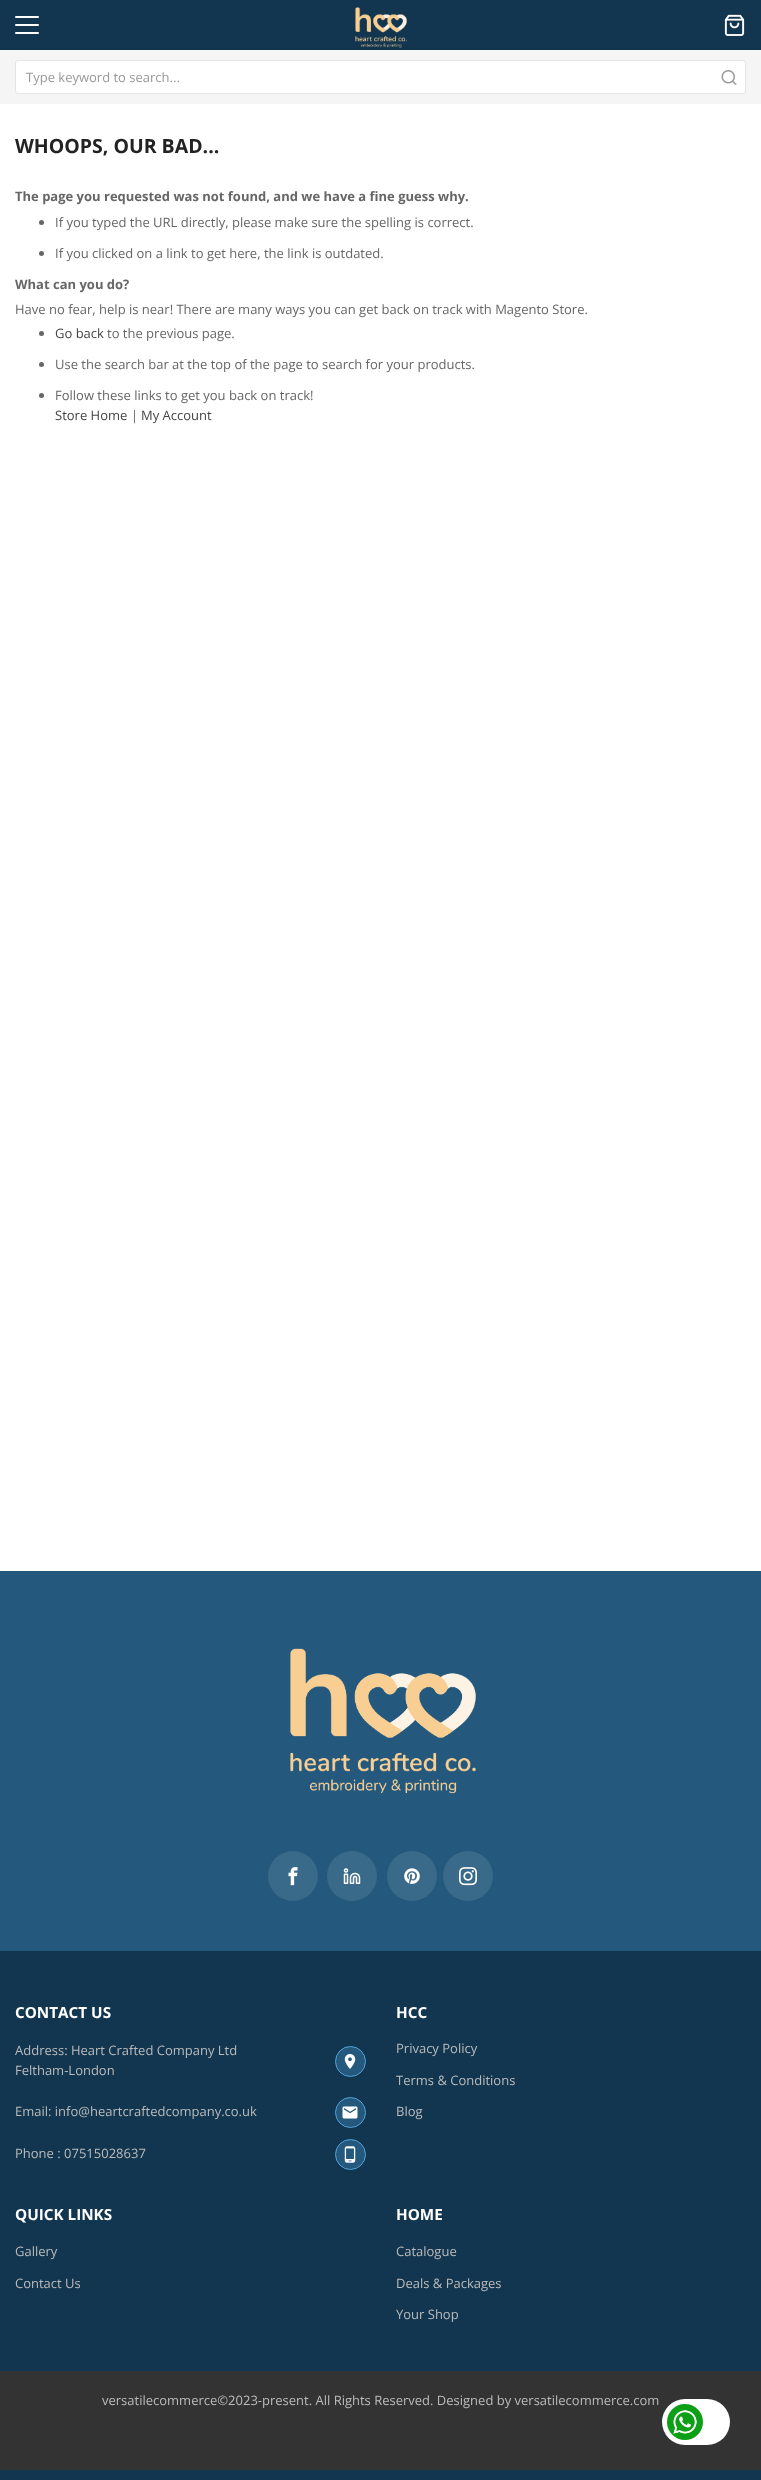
<svg xmlns="http://www.w3.org/2000/svg" width="761" height="2480">
	<rect width="100%" height="100%" fill="#FFFFFF" />
	<rect x="0" y="0" width="761" height="50" fill="#12364F" />
	<rect x="15" y="16" width="24" height="2" rx="1" fill="#FFFFFF" />
	<rect x="15" y="24" width="24" height="2" rx="1" fill="#FFFFFF" />
	<rect x="15" y="32" width="24" height="2" rx="1" fill="#FFFFFF" />
	<image x="355" y="7" width="53" height="41" href="assets/img1.png" />
	<image x="724" y="14" width="21" height="22" href="assets/img2.png" />
	<rect x="0" y="50" width="761" height="54" fill="#F5F5F5" />
	<rect x="15.5" y="60.5" width="730" height="33" rx="2.5" fill="#FFFFFF" stroke="#E5E5E5" />
	<text x="26" y="82" font-family="Open Sans" font-size="13" fill="#999999">Type keyword to search...</text>
	<image x="721" y="70" width="16" height="15" href="assets/img3.png" />
	<text x="15" y="153" font-family="Open Sans" font-size="19.5" font-weight="700" fill="#222222">WHOOPS, OUR BAD...</text>
	<text x="15" y="201" font-family="Open Sans" font-size="13" font-weight="700" fill="#666666">The page you requested was not found, and we have a fine guess why.</text>
	<circle cx="41.5" cy="222.5" r="2.5" fill="#666666" />
	<text x="55" y="227" font-family="Open Sans" font-size="13" fill="#666666">If you typed the URL directly, please make sure the spelling is correct.</text>
	<circle cx="41.5" cy="253.5" r="2.5" fill="#666666" />
	<text x="55" y="258" font-family="Open Sans" font-size="13" fill="#666666">If you clicked on a link to get here, the link is outdated.</text>
	<text x="15" y="289" font-family="Open Sans" font-size="13" font-weight="700" fill="#666666">What can you do?</text>
	<text x="15" y="314" font-family="Open Sans" font-size="13" fill="#666666">Have no fear, help is near! There are many ways you can get back on track with Magento Store.</text>
	<circle cx="41.5" cy="333.5" r="2.5" fill="#666666" />
	<text x="55" y="338" font-family="Open Sans" font-size="13" fill="#444444">Go back</text>
	<text x="107" y="338" font-family="Open Sans" font-size="13" fill="#666666">to the previous page.</text>
	<circle cx="41.5" cy="364.5" r="2.5" fill="#666666" />
	<text x="55" y="369" font-family="Open Sans" font-size="13" fill="#666666">Use the search bar at the top of the page to search for your products.</text>
	<circle cx="41.5" cy="395.5" r="2.5" fill="#666666" />
	<text x="55" y="400" font-family="Open Sans" font-size="13" fill="#666666">Follow these links to get you back on track!</text>
	<text x="55" y="420" font-family="Open Sans" font-size="13" fill="#444444">Store Home</text>
	<text x="131" y="420" font-family="Open Sans" font-size="13" fill="#666666">|</text>
	<text x="141" y="420" font-family="Open Sans" font-size="13" fill="#444444">My Account</text>
	<rect x="0" y="1571" width="761" height="380" fill="#24597D" />
	<image x="290" y="1648" width="186" height="146" href="assets/img4.png" />
	<circle cx="293" cy="1876" r="25" fill="#3A6A8A" />
	<image x="288" y="1867" width="10" height="19" href="assets/img5.png" />
	<circle cx="352" cy="1876" r="25" fill="#3A6A8A" />
	<image x="343" y="1868" width="18" height="16" href="assets/img6.png" />
	<circle cx="412" cy="1876" r="25" fill="#3A6A8A" />
	<image x="404" y="1868" width="16" height="16" href="assets/img7.png" />
	<circle cx="468" cy="1876" r="25" fill="#3A6A8A" />
	<image x="459" y="1867" width="18" height="19" href="assets/img8.png" />
	<rect x="0" y="1951" width="761" height="529" fill="#12364F" />
	<text x="15" y="2018" font-family="Open Sans" font-size="15.25" font-weight="700" fill="#FFFFFF">CONTACT US</text>
	<text x="15" y="2055" font-family="Open Sans" font-size="13" fill="#BBBBBB">Address: Heart Crafted Company Ltd</text>
	<circle cx="350.5" cy="2061.5" r="15" fill="#24597D" stroke="#54A2D9" />
	<image x="344" y="2054" width="12" height="15" href="assets/img9.png" />
	<g font-family="Open Sans" font-size="13" fill="#BBBBBB">
		<text x="15" y="2075">Feltham-London</text>
		<text x="15" y="2116">Email: info@heartcraftedcompany.co.uk</text>
	</g>
	<circle cx="350.5" cy="2112.5" r="15" fill="#24597D" stroke="#54A2D9" />
	<image x="342" y="2106" width="16" height="13" href="assets/img10.png" />
	<text x="15" y="2158" font-family="Open Sans" font-size="13" fill="#BBBBBB">Phone : 07515028637</text>
	<circle cx="350.5" cy="2154.5" r="15" fill="#24597D" stroke="#54A2D9" />
	<image x="344" y="2146" width="12" height="17" href="assets/img11.png" />
	<text x="396" y="2018" font-family="Open Sans" font-size="15.25" font-weight="700" fill="#FFFFFF">HCC</text>
	<g font-family="Open Sans" font-size="13" fill="#BBBBBB">
		<text x="396" y="2053">Privacy Policy</text>
		<text x="396" y="2085">Terms &amp; Conditions</text>
		<text x="396" y="2116">Blog</text>
	</g>
	<text x="15" y="2220" font-family="Open Sans" font-size="15.25" font-weight="700" fill="#FFFFFF">QUICK LINKS</text>
	<g font-family="Open Sans" font-size="13" fill="#BBBBBB">
		<text x="15" y="2256">Gallery</text>
		<text x="15" y="2288">Contact Us</text>
	</g>
	<text x="396" y="2220" font-family="Open Sans" font-size="15.25" font-weight="700" fill="#FFFFFF">HOME</text>
	<g font-family="Open Sans" font-size="13" fill="#BBBBBB">
		<text x="396" y="2256">Catalogue</text>
		<text x="396" y="2288">Deals &amp; Packages</text>
		<text x="396" y="2319">Your Shop</text>
	</g>
	<rect x="0" y="2371" width="761" height="99" fill="#333333" />
	<text x="102" y="2405" font-family="Open Sans" font-size="13" fill="#BBBBBB">versatilecommerce©2023-present. All Rights Reserved. Designed by versatilecommerce.com</text>
	<rect x="662" y="2399" width="68" height="46" rx="23" fill="#FFFFFF" />
	<image x="667" y="2404" width="36" height="36" href="assets/img12.png" />
</svg>
